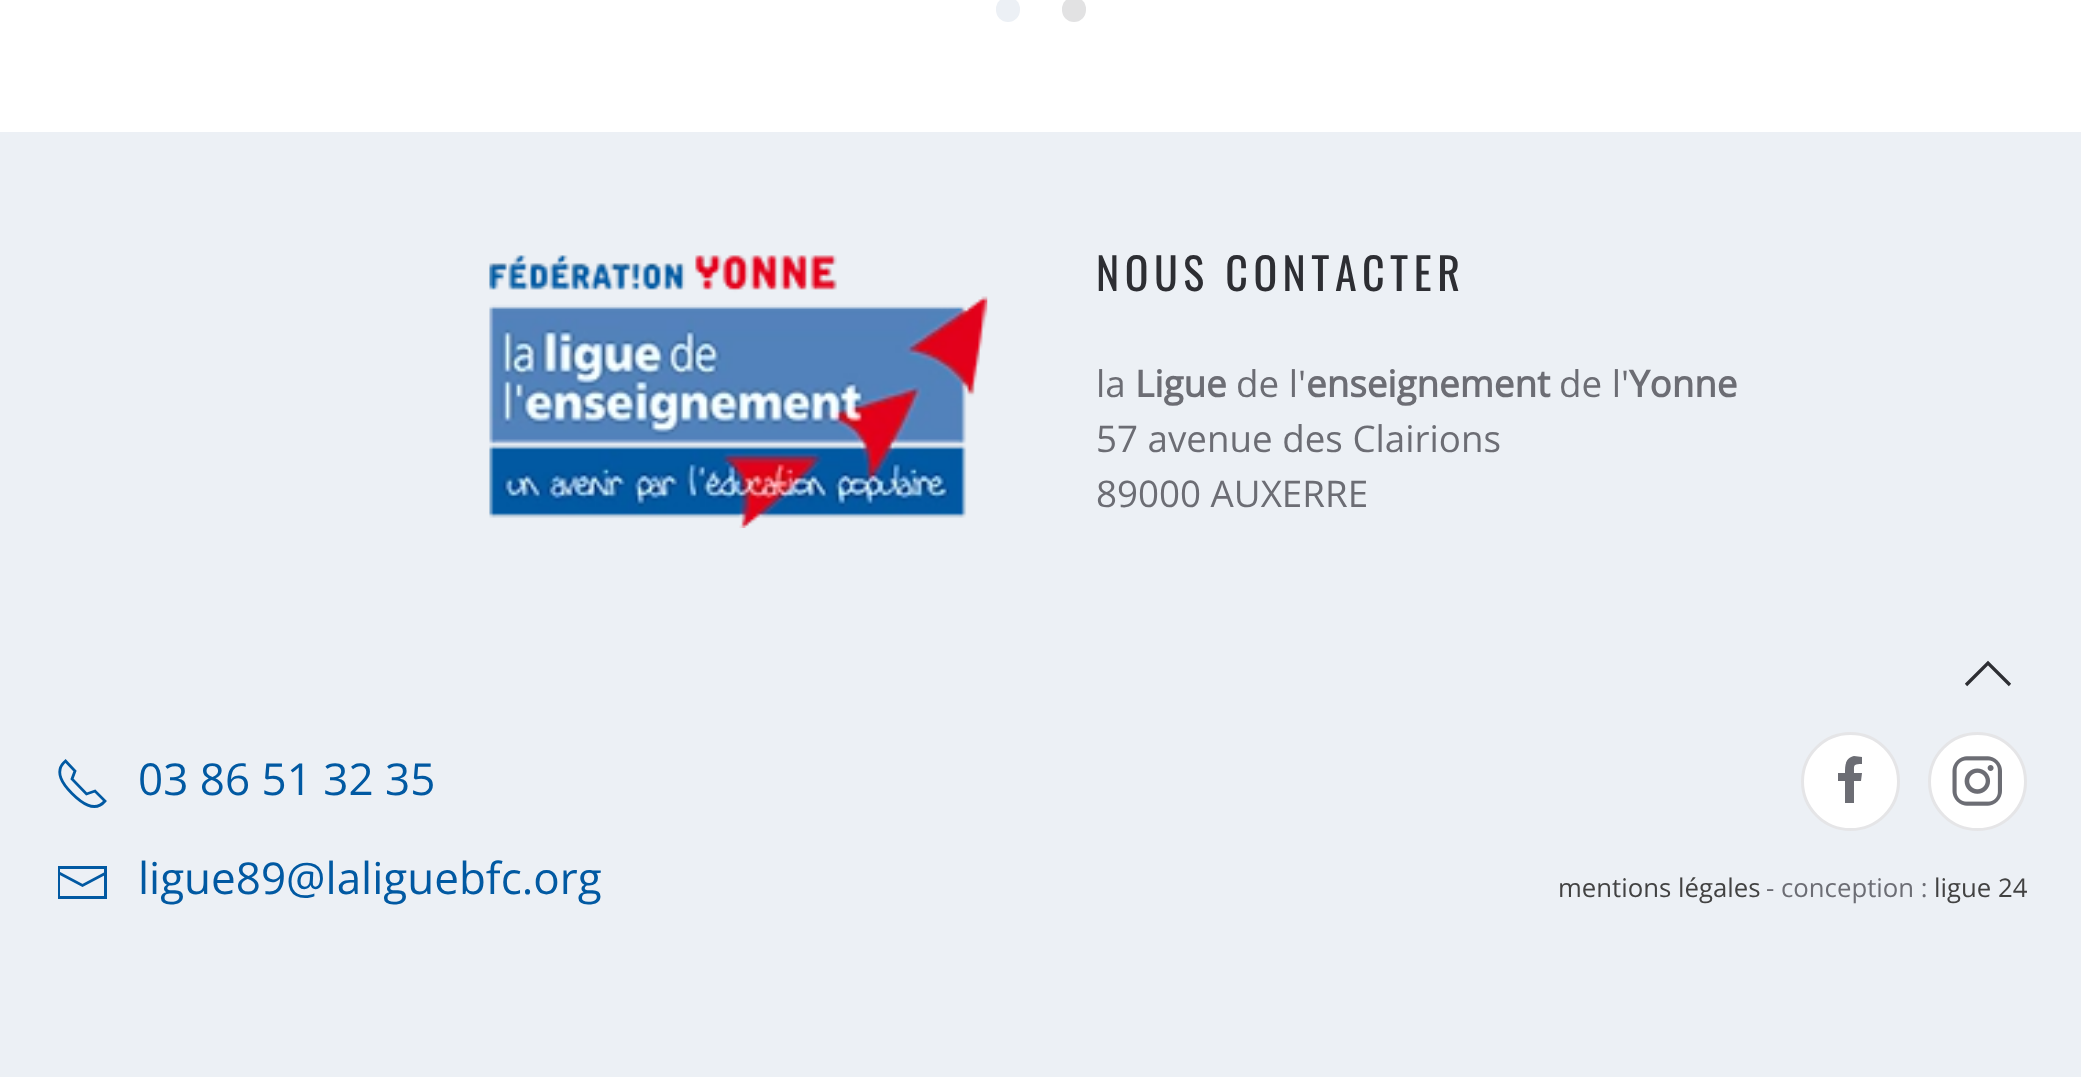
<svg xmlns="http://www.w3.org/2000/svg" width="2081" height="1077">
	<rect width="100%" height="100%" fill="#FFFFFF" />
	<rect x="996" y="-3" width="24" height="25" rx="12" fill="#ECF0F5" />
	<rect x="1062" y="-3" width="24" height="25" rx="12" fill="#E2E2E3" />
	<rect x="0" y="132" width="2081" height="945" fill="#ECF0F5" />
	<image x="489" y="255" width="499" height="273" href="assets/img1.png" />
	<text x="1096" y="291" font-family="Oswald" font-size="44" letter-spacing="5.5" fill="#2D2E33">NOUS CONTACTER</text>
	<text x="1096" y="397" font-family="Open Sans" font-size="36.75" fill="#6C6D74">la</text>
	<text x="1135" y="397" font-family="Open Sans" font-size="36.75" font-weight="700" fill="#6C6D74">Ligue</text>
	<text x="1236" y="397" font-family="Open Sans" font-size="36.75" fill="#6C6D74">de l'</text>
	<text x="1306" y="397" font-family="Open Sans" font-size="36.75" font-weight="700" fill="#6C6D74">enseignement</text>
	<text x="1559" y="397" font-family="Open Sans" font-size="36.75" fill="#6C6D74">de l'</text>
	<text x="1629" y="397" font-family="Open Sans" font-size="36.75" font-weight="700" fill="#6C6D74">Yonne</text>
	<g font-family="Open Sans" font-size="36.75" fill="#6C6D74">
		<text x="1096" y="452">57 avenue des Clairions</text>
		<text x="1096" y="507">89000 AUXERRE</text>
	</g>
	<path d="M72 793.5C80.5 802 94.5 813.5 105 801L95 791L86.5 794L72 779L75 771L65.5 761C53 771.5 63.5 785 72 793.5" fill="none" stroke="#0159A2" stroke-width="2.8" />
	<text x="138" y="795" font-family="Open Sans" font-size="44" fill="#0159A2">03 86 51 32 35</text>
	<path d="M59 873L82.5 885.5L106 873" fill="none" stroke="#0159A2" stroke-width="2.8" />
	<path d="M58 866V899H107V866ZM104 896H60V869H104Z" fill="#0159A2" />
	<text x="138" y="894" font-family="Open Sans" font-size="44" fill="#0159A2">ligue89@laliguebfc.org</text>
	<path d="M1966 685L1988 663L2010 685" fill="none" stroke="#2D2E33" stroke-width="3.3" />
	<circle cx="1850.5" cy="781.5" r="48" fill="#FFFFFF" stroke="#E5E5E7" stroke-width="3" />
	<path d="M1854 781H1861L1862 773H1854C1854 765 1853 764 1862 764V757L1854 756C1845 758 1845 766 1845 773H1838V781H1845V803H1854Z" fill="#6C6D74" />
	<circle cx="1977.5" cy="781.5" r="48" fill="#FFFFFF" stroke="#E5E5E7" stroke-width="3" />
	<image x="1952" y="756" width="50" height="50" href="assets/img2.png" />
	<text x="1558" y="897" font-family="Open Sans" font-size="25.75" fill="#424242">mentions légales</text>
	<text x="1766" y="897" font-family="Open Sans" font-size="25.75" fill="#6C6D74">- conception :</text>
	<text x="1934" y="897" font-family="Open Sans" font-size="25.75" fill="#424242">ligue 24</text>
</svg>
